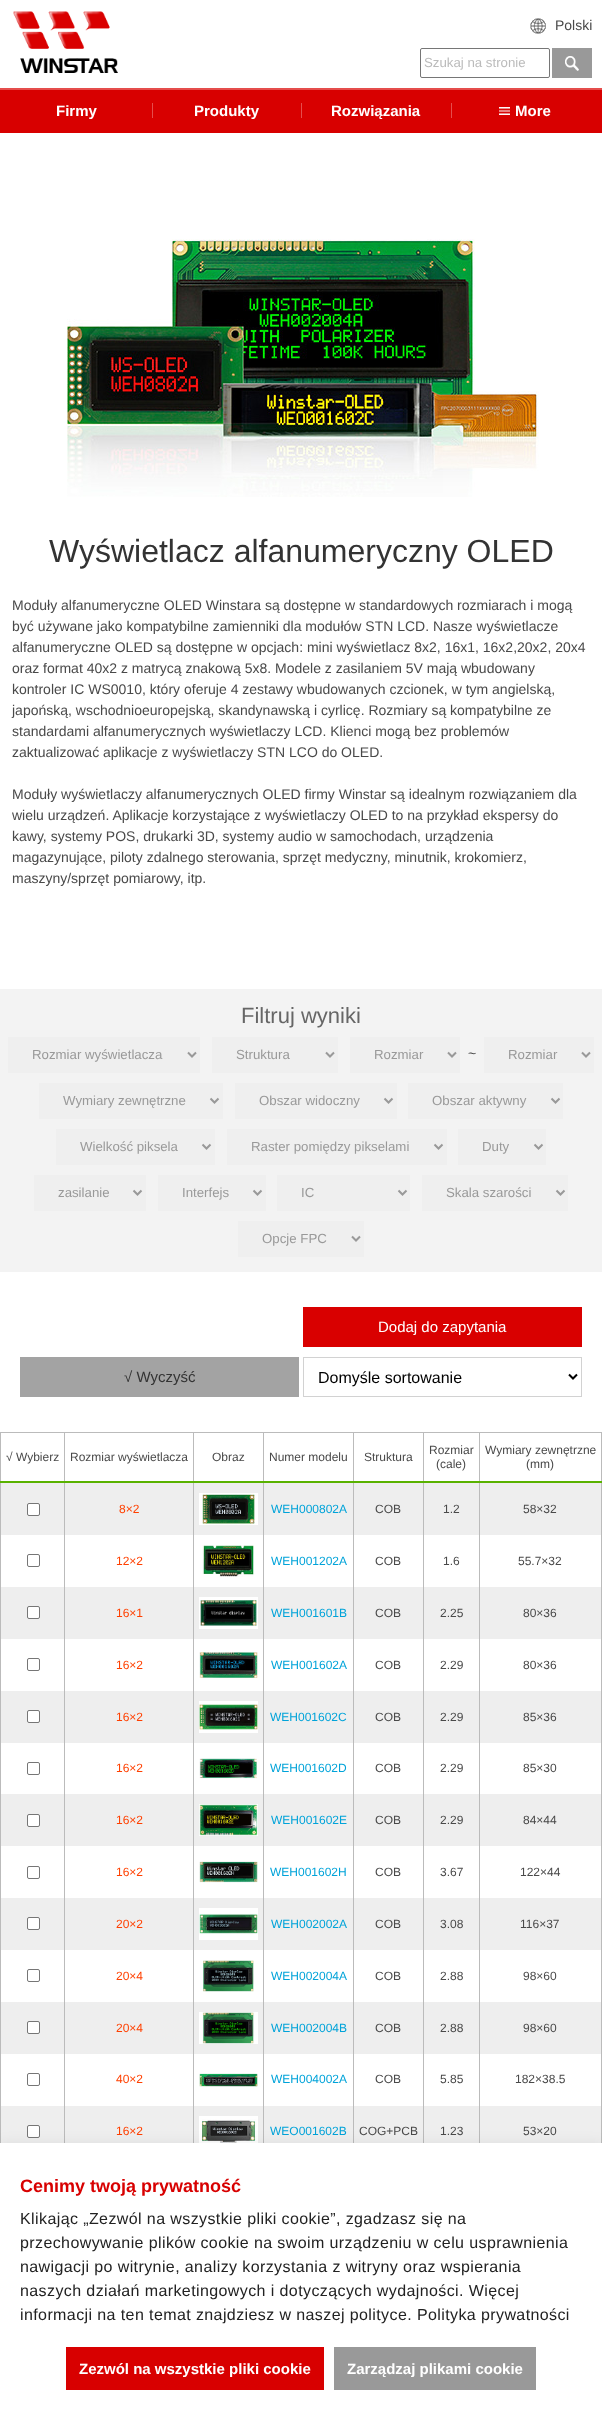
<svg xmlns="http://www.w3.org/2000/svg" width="602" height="2420">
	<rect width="100%" height="100%" fill="#FFFFFF" />
	<image x="13" y="11" width="105" height="62" href="assets/img1.png" />
	<image x="530" y="18" width="16" height="16" href="assets/img2.png" />
	<text x="555" y="30" font-family="Liberation Sans" font-size="14" fill="#494949">Polski</text>
	<rect x="0" y="90" width="602" height="43" fill="#D80000" />
	<rect x="0" y="88" width="602" height="2" fill="#E54D4C" />
	<rect x="420.5" y="48.5" width="129" height="29" rx="1.5" fill="none" stroke="#767676" />
	<text x="424" y="67" font-family="Liberation Sans" font-size="13.25" fill="#BBBBBB">Szukaj na stronie</text>
	<rect x="552" y="48" width="40" height="30" fill="#999999" />
	<image x="565" y="56" width="14" height="15" href="assets/img3.png" />
	<text x="56" y="116" font-family="Liberation Sans" font-size="15" font-weight="700" fill="#FFFFFF">Firmy</text>
	<rect x="152" y="103" width="1" height="15" fill="#E54D4C" />
	<text x="194" y="116" font-family="Liberation Sans" font-size="15" font-weight="700" fill="#FFFFFF">Produkty</text>
	<rect x="301" y="103" width="1" height="15" fill="#E54D4C" />
	<text x="331" y="116" font-family="Liberation Sans" font-size="15" font-weight="700" fill="#FFFFFF">Rozwiązania</text>
	<rect x="451" y="103" width="1" height="15" fill="#E54D4C" />
	<image x="499" y="107" width="11" height="8" href="assets/img4.png" />
	<text x="515" y="116" font-family="Liberation Sans" font-size="15" font-weight="700" fill="#FFFFFF">More</text>
	<image x="67" y="239" width="472" height="258" href="assets/img5.png" />
	<text x="49" y="562" font-family="Liberation Sans" font-size="32" fill="#333333">Wyświetlacz alfanumeryczny OLED</text>
	<g font-family="Liberation Sans" font-size="14" fill="#494949">
		<text x="12" y="610">Moduły alfanumeryczne OLED Winstara są dostępne w standardowych rozmiarach i mogą</text>
		<text x="12" y="631">być używane jako kompatybilne zamienniki dla modułów STN LCD. Nasze wyświetlacze</text>
		<text x="12" y="652">alfanumeryczne OLED są dostępne w opcjach: mini wyświetlacz 8x2, 16x1, 16x2,20x2, 20x4</text>
		<text x="12" y="673">oraz format 40x2 z matrycą znakową 5x8. Modele z zasilaniem 5V mają wbudowany</text>
		<text x="12" y="694">kontroler IC WS0010, który oferuje 4 zestawy wbudowanych czcionek, w tym angielską,</text>
		<text x="12" y="715">japońską, wschodnioeuropejską, skandynawską i cyrlicę. Rozmiary są kompatybilne ze</text>
		<text x="12" y="736">standardami alfanumerycznych wyświetlaczy LCD. Klienci mogą bez problemów</text>
		<text x="12" y="757">zaktualizować aplikacje z wyświetlaczy STN LCO do OLED.</text>
		<text x="12" y="799">Moduły wyświetlaczy alfanumerycznych OLED firmy Winstar są idealnym rozwiązaniem dla</text>
		<text x="12" y="820">wielu urządzeń. Aplikacje korzystające z wyświetlaczy OLED to na przykład ekspersy do</text>
		<text x="12" y="841">kawy, systemy POS, drukarki 3D, systemy audio w samochodach, urządzenia</text>
		<text x="12" y="862">magazynujące, piloty zdalnego sterowania, sprzęt medyczny, minutnik, krokomierz,</text>
		<text x="12" y="883">maszyny/sprzęt pomiarowy, itp.</text>
	</g>
	<rect x="0" y="989" width="602" height="283" fill="#F3F3F3" />
	<text x="241" y="1023" font-family="Liberation Sans" font-size="22" fill="#666666">Filtruj wyniki</text>
	<rect x="8" y="1037" width="192" height="36" fill="#EFEFEF" />
	<path d="M188 1052.5L192 1056.5L196 1052.5" fill="none" stroke="#999999" stroke-width="2" />
	<text x="32" y="1059" font-family="Liberation Sans" font-size="13.25" fill="#999999">Rozmiar wyświetlacza</text>
	<rect x="212" y="1037" width="126" height="36" fill="#EFEFEF" />
	<path d="M326 1052.5L330 1056.5L334 1052.5" fill="none" stroke="#999999" stroke-width="2" />
	<text x="236" y="1059" font-family="Liberation Sans" font-size="13.25" fill="#999999">Struktura</text>
	<rect x="350" y="1037" width="110" height="36" fill="#EFEFEF" />
	<path d="M448 1052.5L452 1056.5L456 1052.5" fill="none" stroke="#999999" stroke-width="2" />
	<text x="374" y="1059" font-family="Liberation Sans" font-size="13.25" fill="#999999">Rozmiar</text>
	<text x="468" y="1058" font-family="Liberation Sans" font-size="14" fill="#494949">~</text>
	<rect x="484" y="1037" width="110" height="36" fill="#EFEFEF" />
	<path d="M582 1052.5L586 1056.5L590 1052.5" fill="none" stroke="#999999" stroke-width="2" />
	<text x="508" y="1059" font-family="Liberation Sans" font-size="13.25" fill="#999999">Rozmiar</text>
	<rect x="39" y="1083" width="184" height="36" fill="#EFEFEF" />
	<path d="M210.5 1098.5L214.5 1102.5L218.5 1098.5" fill="none" stroke="#999999" stroke-width="2" />
	<text x="63" y="1105" font-family="Liberation Sans" font-size="13.25" fill="#999999">Wymiary zewnętrzne</text>
	<rect x="235" y="1083" width="162" height="36" fill="#EFEFEF" />
	<path d="M384.5 1098.5L388.5 1102.5L392.5 1098.5" fill="none" stroke="#999999" stroke-width="2" />
	<text x="259" y="1105" font-family="Liberation Sans" font-size="13.25" fill="#999999">Obszar widoczny</text>
	<rect x="408" y="1083" width="155" height="36" fill="#EFEFEF" />
	<path d="M551.5 1098.5L555.5 1102.5L559.5 1098.5" fill="none" stroke="#999999" stroke-width="2" />
	<text x="432" y="1105" font-family="Liberation Sans" font-size="13.25" fill="#999999">Obszar aktywny</text>
	<rect x="56" y="1129" width="159" height="36" fill="#EFEFEF" />
	<path d="M202.5 1144.5L206.5 1148.5L210.5 1144.5" fill="none" stroke="#999999" stroke-width="2" />
	<text x="80" y="1151" font-family="Liberation Sans" font-size="13.25" fill="#999999">Wielkość piksela</text>
	<rect x="227" y="1129" width="220" height="36" fill="#EFEFEF" />
	<path d="M434.5 1144.5L438.5 1148.5L442.5 1144.5" fill="none" stroke="#999999" stroke-width="2" />
	<text x="251" y="1151" font-family="Liberation Sans" font-size="13.25" fill="#999999">Raster pomiędzy pikselami</text>
	<rect x="458" y="1129" width="88" height="36" fill="#EFEFEF" />
	<path d="M534.5 1144.5L538.5 1148.5L542.5 1144.5" fill="none" stroke="#999999" stroke-width="2" />
	<text x="482" y="1151" font-family="Liberation Sans" font-size="13.25" fill="#999999">Duty</text>
	<rect x="34" y="1175" width="112" height="36" fill="#EFEFEF" />
	<path d="M133.5 1190.5L137.5 1194.5L141.5 1190.5" fill="none" stroke="#999999" stroke-width="2" />
	<text x="58" y="1197" font-family="Liberation Sans" font-size="13.25" fill="#999999">zasilanie</text>
	<rect x="158" y="1175" width="108" height="36" fill="#EFEFEF" />
	<path d="M253.5 1190.5L257.5 1194.5L261.5 1190.5" fill="none" stroke="#999999" stroke-width="2" />
	<text x="182" y="1197" font-family="Liberation Sans" font-size="13.25" fill="#999999">Interfejs</text>
	<rect x="277" y="1175" width="133" height="36" fill="#EFEFEF" />
	<path d="M398.5 1190.5L402.5 1194.5L406.5 1190.5" fill="none" stroke="#999999" stroke-width="2" />
	<text x="301" y="1197" font-family="Liberation Sans" font-size="13.25" fill="#999999">IC</text>
	<rect x="422" y="1175" width="146" height="36" fill="#EFEFEF" />
	<path d="M556.5 1190.5L560.5 1194.5L564.5 1190.5" fill="none" stroke="#999999" stroke-width="2" />
	<text x="446" y="1197" font-family="Liberation Sans" font-size="13.25" fill="#999999">Skala szarości</text>
	<rect x="238" y="1221" width="126" height="36" fill="#EFEFEF" />
	<path d="M352 1236.5L356 1240.5L360 1236.5" fill="none" stroke="#999999" stroke-width="2" />
	<text x="262" y="1243" font-family="Liberation Sans" font-size="13.25" fill="#999999">Opcje FPC</text>
	<rect x="303" y="1307" width="279" height="40" fill="#D90000" />
	<text x="378" y="1332" font-family="Liberation Sans" font-size="15" fill="#FFFFFF">Dodaj do zapytania</text>
	<rect x="20" y="1357" width="279" height="40" fill="#A3A3A3" />
	<text x="124" y="1382" font-family="Liberation Sans" font-size="15" fill="#333333">√ Wyczyść</text>
	<rect x="303.5" y="1357.5" width="278" height="39" fill="none" stroke="#D2D2D2" />
	<path d="M569 1374.5L573 1378.5L577 1374.5" fill="none" stroke="#000000" stroke-width="2" />
	<text x="318" y="1383" font-family="Liberation Sans" font-size="16" fill="#000000">Domyśle sortowanie</text>
	<rect x="601" y="1432" width="1" height="711" fill="#BBBBBB" />
	<rect x="479" y="1432" width="123" height="1" fill="#BBBBBB" />
	<rect x="1" y="1483" width="600" height="52" fill="#EEEEEE" />
	<rect x="1" y="1587" width="600" height="52" fill="#EEEEEE" />
	<rect x="1" y="1691" width="600" height="52" fill="#EEEEEE" />
	<rect x="1" y="1794" width="600" height="52" fill="#EEEEEE" />
	<rect x="1" y="1898" width="600" height="52" fill="#EEEEEE" />
	<rect x="1" y="2002" width="600" height="52" fill="#EEEEEE" />
	<rect x="1" y="2106" width="600" height="37" fill="#EEEEEE" />
	<rect x="479" y="1482" width="1" height="661" fill="#BBBBBB" />
	<rect x="479" y="1432" width="1" height="51" fill="#BBBBBB" />
	<rect x="423" y="1432" width="57" height="1" fill="#BBBBBB" />
	<rect x="423" y="1482" width="1" height="661" fill="#BBBBBB" />
	<rect x="423" y="1432" width="1" height="51" fill="#BBBBBB" />
	<rect x="353" y="1432" width="71" height="1" fill="#BBBBBB" />
	<rect x="353" y="1482" width="1" height="661" fill="#BBBBBB" />
	<rect x="353" y="1432" width="1" height="51" fill="#BBBBBB" />
	<rect x="263" y="1432" width="91" height="1" fill="#BBBBBB" />
	<rect x="263" y="1482" width="1" height="661" fill="#BBBBBB" />
	<rect x="263" y="1432" width="1" height="51" fill="#BBBBBB" />
	<rect x="193" y="1432" width="71" height="1" fill="#BBBBBB" />
	<rect x="193" y="1482" width="1" height="661" fill="#BBBBBB" />
	<rect x="193" y="1432" width="1" height="51" fill="#BBBBBB" />
	<rect x="64" y="1432" width="130" height="1" fill="#BBBBBB" />
	<rect x="64" y="1482" width="1" height="661" fill="#BBBBBB" />
	<rect x="64" y="1432" width="1" height="51" fill="#BBBBBB" />
	<rect x="0" y="1432" width="65" height="1" fill="#BBBBBB" />
	<rect x="0" y="1482" width="1" height="661" fill="#BBBBBB" />
	<rect x="0" y="1432" width="1" height="51" fill="#BBBBBB" />
	<g font-family="Liberation Sans" font-size="12" fill="#494949">
		<text x="6" y="1461">√ Wybierz</text>
		<text x="70" y="1461">Rozmiar wyświetlacza</text>
		<text x="212" y="1461">Obraz</text>
		<text x="269" y="1461">Numer modelu</text>
		<text x="364" y="1461">Struktura</text>
		<text x="429" y="1454">Rozmiar</text>
		<text x="436" y="1468">(cale)</text>
	</g>
	<rect x="0" y="1481" width="602" height="2" fill="#59B200" />
	<g font-family="Liberation Sans" font-size="12" fill="#494949">
		<text x="485" y="1454">Wymiary zewnętrzne</text>
		<text x="526" y="1468">(mm)</text>
	</g>
	<rect x="27.5" y="1503.5" width="12" height="12" rx="1.5" fill="#FFFFFF" stroke="#767676" />
	<text x="119" y="1513" font-family="Liberation Sans" font-size="12" fill="#FF4000">8×2</text>
	<image x="199" y="1493" width="59" height="32" href="assets/img6.png" />
	<text x="271" y="1513" font-family="Liberation Sans" font-size="12" fill="#00A3D9">WEH000802A</text>
	<g font-family="Liberation Sans" font-size="12" fill="#494949">
		<text x="375" y="1513">COB</text>
		<text x="443" y="1513">1.2</text>
		<text x="523" y="1513">58×32</text>
	</g>
	<rect x="27.5" y="1554.5" width="12" height="12" rx="1.5" fill="none" stroke="#767676" />
	<text x="116" y="1565" font-family="Liberation Sans" font-size="12" fill="#FF4000">12×2</text>
	<image x="202" y="1545" width="52" height="32" href="assets/img7.png" />
	<text x="271" y="1565" font-family="Liberation Sans" font-size="12" fill="#00A3D9">WEH001202A</text>
	<g font-family="Liberation Sans" font-size="12" fill="#494949">
		<text x="375" y="1565">COB</text>
		<text x="443" y="1565">1.6</text>
		<text x="518" y="1565">55.7×32</text>
	</g>
	<rect x="27.5" y="1606.5" width="12" height="12" rx="1.5" fill="#FFFFFF" stroke="#767676" />
	<text x="116" y="1617" font-family="Liberation Sans" font-size="12" fill="#FF4000">16×1</text>
	<image x="199" y="1597" width="59" height="32" href="assets/img8.png" />
	<text x="271" y="1617" font-family="Liberation Sans" font-size="12" fill="#00A3D9">WEH001601B</text>
	<g font-family="Liberation Sans" font-size="12" fill="#494949">
		<text x="375" y="1617">COB</text>
		<text x="440" y="1617">2.25</text>
		<text x="523" y="1617">80×36</text>
	</g>
	<rect x="27.5" y="1658.5" width="12" height="12" rx="1.5" fill="none" stroke="#767676" />
	<text x="116" y="1669" font-family="Liberation Sans" font-size="12" fill="#FF4000">16×2</text>
	<image x="199" y="1652" width="59" height="26" href="assets/img9.png" />
	<text x="271" y="1669" font-family="Liberation Sans" font-size="12" fill="#00A3D9">WEH001602A</text>
	<g font-family="Liberation Sans" font-size="12" fill="#494949">
		<text x="375" y="1669">COB</text>
		<text x="440" y="1669">2.29</text>
		<text x="523" y="1669">80×36</text>
	</g>
	<rect x="27.5" y="1710.5" width="12" height="12" rx="1.5" fill="#FFFFFF" stroke="#767676" />
	<text x="116" y="1721" font-family="Liberation Sans" font-size="12" fill="#FF4000">16×2</text>
	<image x="199" y="1701" width="59" height="32" href="assets/img10.png" />
	<text x="270" y="1721" font-family="Liberation Sans" font-size="12" fill="#00A3D9">WEH001602C</text>
	<g font-family="Liberation Sans" font-size="12" fill="#494949">
		<text x="375" y="1721">COB</text>
		<text x="440" y="1721">2.29</text>
		<text x="523" y="1721">85×36</text>
	</g>
	<rect x="27.5" y="1762.5" width="12" height="12" rx="1.5" fill="none" stroke="#767676" />
	<text x="116" y="1772" font-family="Liberation Sans" font-size="12" fill="#FF4000">16×2</text>
	<image x="199" y="1758" width="58" height="21" href="assets/img11.png" />
	<text x="270" y="1772" font-family="Liberation Sans" font-size="12" fill="#00A3D9">WEH001602D</text>
	<g font-family="Liberation Sans" font-size="12" fill="#494949">
		<text x="375" y="1772">COB</text>
		<text x="440" y="1772">2.29</text>
		<text x="523" y="1772">85×30</text>
	</g>
	<rect x="27.5" y="1814.5" width="12" height="12" rx="1.5" fill="#FFFFFF" stroke="#767676" />
	<text x="116" y="1824" font-family="Liberation Sans" font-size="12" fill="#FF4000">16×2</text>
	<image x="199" y="1804" width="59" height="32" href="assets/img12.png" />
	<text x="271" y="1824" font-family="Liberation Sans" font-size="12" fill="#00A3D9">WEH001602E</text>
	<g font-family="Liberation Sans" font-size="12" fill="#494949">
		<text x="375" y="1824">COB</text>
		<text x="440" y="1824">2.29</text>
		<text x="523" y="1824">84×44</text>
	</g>
	<rect x="27.5" y="1866.5" width="12" height="12" rx="1.5" fill="none" stroke="#767676" />
	<text x="116" y="1876" font-family="Liberation Sans" font-size="12" fill="#FF4000">16×2</text>
	<image x="199" y="1861" width="59" height="22" href="assets/img13.png" />
	<text x="270" y="1876" font-family="Liberation Sans" font-size="12" fill="#00A3D9">WEH001602H</text>
	<g font-family="Liberation Sans" font-size="12" fill="#494949">
		<text x="375" y="1876">COB</text>
		<text x="440" y="1876">3.67</text>
		<text x="520" y="1876">122×44</text>
	</g>
	<rect x="27.5" y="1917.5" width="12" height="12" rx="1.5" fill="#FFFFFF" stroke="#767676" />
	<text x="116" y="1928" font-family="Liberation Sans" font-size="12" fill="#FF4000">20×2</text>
	<image x="199" y="1908" width="59" height="32" href="assets/img14.png" />
	<text x="271" y="1928" font-family="Liberation Sans" font-size="12" fill="#00A3D9">WEH002002A</text>
	<g font-family="Liberation Sans" font-size="12" fill="#494949">
		<text x="375" y="1928">COB</text>
		<text x="440" y="1928">3.08</text>
		<text x="520" y="1928">116×37</text>
	</g>
	<rect x="27.5" y="1969.5" width="12" height="12" rx="1.5" fill="none" stroke="#767676" />
	<text x="116" y="1980" font-family="Liberation Sans" font-size="12" fill="#FF4000">20×4</text>
	<image x="203" y="1960" width="51" height="32" href="assets/img15.png" />
	<text x="271" y="1980" font-family="Liberation Sans" font-size="12" fill="#00A3D9">WEH002004A</text>
	<g font-family="Liberation Sans" font-size="12" fill="#494949">
		<text x="375" y="1980">COB</text>
		<text x="440" y="1980">2.88</text>
		<text x="523" y="1980">98×60</text>
	</g>
	<rect x="27.5" y="2021.5" width="12" height="12" rx="1.5" fill="#FFFFFF" stroke="#767676" />
	<text x="116" y="2032" font-family="Liberation Sans" font-size="12" fill="#FF4000">20×4</text>
	<image x="199" y="2012" width="59" height="32" href="assets/img16.png" />
	<text x="271" y="2032" font-family="Liberation Sans" font-size="12" fill="#00A3D9">WEH002004B</text>
	<g font-family="Liberation Sans" font-size="12" fill="#494949">
		<text x="375" y="2032">COB</text>
		<text x="440" y="2032">2.88</text>
		<text x="523" y="2032">98×60</text>
	</g>
	<rect x="27.5" y="2073.5" width="12" height="12" rx="1.5" fill="none" stroke="#767676" />
	<text x="116" y="2083" font-family="Liberation Sans" font-size="12" fill="#FF4000">40×2</text>
	<image x="199" y="2073" width="59" height="14" href="assets/img17.png" />
	<text x="271" y="2083" font-family="Liberation Sans" font-size="12" fill="#00A3D9">WEH004002A</text>
	<g font-family="Liberation Sans" font-size="12" fill="#494949">
		<text x="375" y="2083">COB</text>
		<text x="440" y="2083">5.85</text>
		<text x="515" y="2083">182×38.5</text>
	</g>
	<rect x="27.5" y="2125.5" width="12" height="12" rx="1.5" fill="#FFFFFF" stroke="#767676" />
	<text x="116" y="2135" font-family="Liberation Sans" font-size="12" fill="#FF4000">16×2</text>
	<image x="199" y="2116" width="59" height="27" href="assets/img18.png" />
	<text x="270" y="2135" font-family="Liberation Sans" font-size="12" fill="#00A3D9">WEO001602B</text>
	<g font-family="Liberation Sans" font-size="12" fill="#494949">
		<text x="359" y="2135">COG+PCB</text>
		<text x="440" y="2135">1.23</text>
		<text x="523" y="2135">53×20</text>
	</g>
	<rect x="0" y="2143" width="602" height="277" fill="#000000" fill-opacity="0.07" filter="blur(6.5px)" />
	<rect x="0" y="2143" width="602" height="277" fill="#FFFFFF" />
	<text x="20" y="2192" font-family="Liberation Sans" font-size="18" font-weight="700" fill="#D80000">Cenimy twoją prywatność</text>
	<g font-family="Liberation Sans" font-size="16" letter-spacing="0.4" fill="#222222">
		<text x="20" y="2224">Klikając „Zezwól na wszystkie pliki cookie”, zgadzasz się na</text>
		<text x="20" y="2248">przechowywanie plików cookie na swoim urządzeniu w celu usprawnienia</text>
		<text x="20" y="2272">nawigacji po witrynie, analizy korzystania z witryny oraz wspierania</text>
		<text x="20" y="2296">naszych działań marketingowych i dotyczących wydajności. Więcej</text>
		<text x="20" y="2320">informacji na ten temat znajdziesz w naszej polityce. Polityka prywatności</text>
	</g>
	<rect x="66" y="2347" width="258" height="43" fill="#D80000" />
	<text x="79" y="2374" font-family="Liberation Sans" font-size="15" font-weight="700" fill="#FFFFFF">Zezwól na wszystkie pliki cookie</text>
	<rect x="334" y="2347" width="202" height="43" fill="#999999" />
	<text x="347" y="2374" font-family="Liberation Sans" font-size="15" font-weight="700" fill="#FFFFFF">Zarządzaj plikami cookie</text>
</svg>
